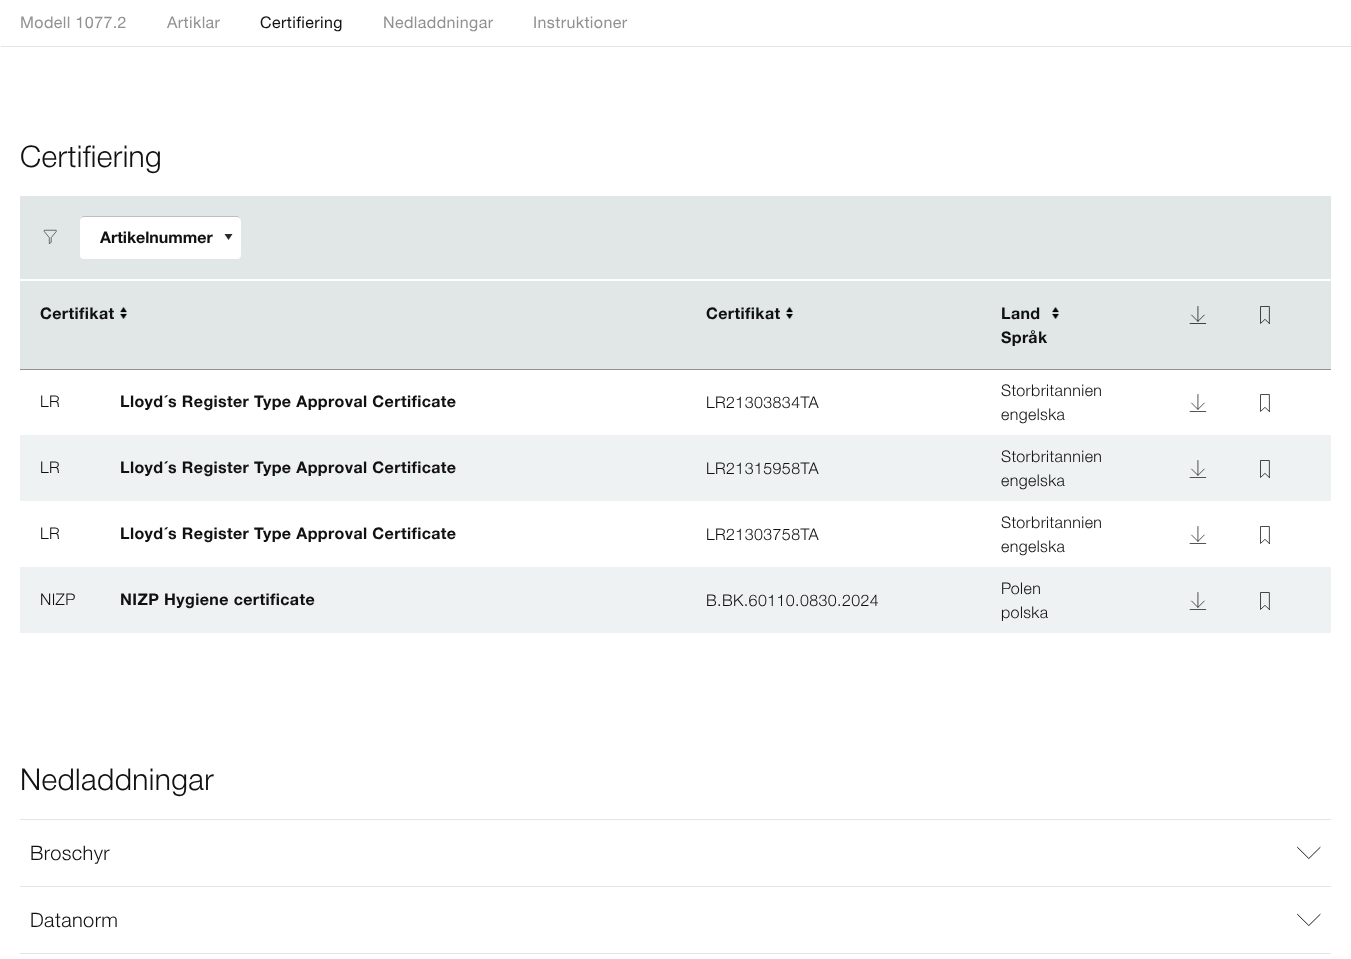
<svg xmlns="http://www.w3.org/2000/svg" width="1351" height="959">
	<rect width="100%" height="100%" fill="#FFFFFF" />
	<rect x="1" y="46" width="1350" height="1" fill="#E1E7E7" />
	<g font-family="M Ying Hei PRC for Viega" font-size="16" letter-spacing="0.4" fill="#919191">
		<text x="20" y="28">Modell 1077.2</text>
		<text x="167" y="28">Artiklar</text>
	</g>
	<text x="260" y="28" font-family="M Ying Hei PRC for Viega" font-size="16" letter-spacing="0.4" fill="#111111">Certifiering</text>
	<g font-family="M Ying Hei PRC for Viega" font-size="16" letter-spacing="0.4" fill="#919191">
		<text x="383" y="28">Nedladdningar</text>
		<text x="533" y="28">Instruktioner</text>
	</g>
	<text x="20" y="167" font-family="M Ying Hei PRC for Viega" font-size="30" font-weight="300" letter-spacing="0.4" fill="#111111">Certifiering</text>
	<rect x="20" y="196" width="1311" height="83" fill="#E1E7E7" />
	<image x="43" y="229" width="14" height="15" href="assets/img1.png" />
	<rect x="80" y="216" width="161" height="43" rx="4" fill="#FFFFFF" />
	<path d="M224.5 234H232.5L228.5 240Z" fill="#2B2B2B" />
	<path d="M84 217H237C239 217 241 219 241 221C241 219 240 217 238 216H83C81 217 80 219 80 221C80 219 82 217 84 217Z" fill="#000000" fill-opacity="0.25" />
	<text x="100" y="243" font-family="M Ying Hei PRC for Viega" font-size="16" font-weight="700" fill="#111111">Artikelnummer</text>
	<rect x="20" y="281" width="1311" height="88" fill="#E1E7E7" />
	<text x="40" y="319" font-family="M Ying Hei PRC for Viega" font-size="16" font-weight="700" letter-spacing="0.4" fill="#111111">Certifikat</text>
	<image x="120" y="307" width="7" height="12" href="assets/img2.png" />
	<text x="706" y="319" font-family="M Ying Hei PRC for Viega" font-size="16" font-weight="700" letter-spacing="0.4" fill="#111111">Certifikat</text>
	<image x="786" y="307" width="7" height="12" href="assets/img2.png" />
	<text x="1001" y="319" font-family="M Ying Hei PRC for Viega" font-size="16" font-weight="700" letter-spacing="0.4" fill="#111111">Land</text>
	<image x="1052" y="307" width="7" height="12" href="assets/img2.png" />
	<text x="1001" y="343" font-family="M Ying Hei PRC for Viega" font-size="16" font-weight="700" letter-spacing="0.4" fill="#111111">Språk</text>
	<image x="1189" y="306" width="18" height="18" href="assets/img3.png" />
	<image x="1260" y="306" width="10" height="18" href="assets/img4.png" />
	<rect x="20" y="369" width="1311" height="1" fill="#919191" />
	<text x="40" y="407" font-family="M Ying Hei PRC for Viega" font-size="16" font-weight="300" letter-spacing="0.4" fill="#111111">LR</text>
	<text x="120" y="407" font-family="M Ying Hei PRC for Viega" font-size="16" font-weight="700" letter-spacing="0.4" fill="#111111">Lloyd´s Register Type Approval Certificate</text>
	<g font-family="M Ying Hei PRC for Viega" font-size="16" font-weight="300" letter-spacing="0.4" fill="#111111">
		<text x="706" y="408">LR21303834TA</text>
		<text x="1001" y="396">Storbritannien</text>
		<text x="1001" y="420">engelska</text>
	</g>
	<image x="1189" y="394" width="18" height="18" href="assets/img5.png" />
	<image x="1260" y="394" width="10" height="18" href="assets/img6.png" />
	<rect x="20" y="435" width="1311" height="66" fill="#EFF2F2" />
	<text x="40" y="473" font-family="M Ying Hei PRC for Viega" font-size="16" font-weight="300" letter-spacing="0.4" fill="#111111">LR</text>
	<text x="120" y="473" font-family="M Ying Hei PRC for Viega" font-size="16" font-weight="700" letter-spacing="0.4" fill="#111111">Lloyd´s Register Type Approval Certificate</text>
	<g font-family="M Ying Hei PRC for Viega" font-size="16" font-weight="300" letter-spacing="0.4" fill="#111111">
		<text x="706" y="474">LR21315958TA</text>
		<text x="1001" y="462">Storbritannien</text>
		<text x="1001" y="486">engelska</text>
	</g>
	<image x="1189" y="460" width="18" height="18" href="assets/img7.png" />
	<image x="1260" y="460" width="10" height="18" href="assets/img8.png" />
	<text x="40" y="539" font-family="M Ying Hei PRC for Viega" font-size="16" font-weight="300" letter-spacing="0.4" fill="#111111">LR</text>
	<text x="120" y="539" font-family="M Ying Hei PRC for Viega" font-size="16" font-weight="700" letter-spacing="0.4" fill="#111111">Lloyd´s Register Type Approval Certificate</text>
	<g font-family="M Ying Hei PRC for Viega" font-size="16" font-weight="300" letter-spacing="0.4" fill="#111111">
		<text x="706" y="540">LR21303758TA</text>
		<text x="1001" y="528">Storbritannien</text>
		<text x="1001" y="552">engelska</text>
	</g>
	<image x="1189" y="526" width="18" height="18" href="assets/img5.png" />
	<image x="1260" y="526" width="10" height="18" href="assets/img6.png" />
	<rect x="20" y="567" width="1311" height="66" fill="#EFF2F2" />
	<text x="40" y="605" font-family="M Ying Hei PRC for Viega" font-size="16" font-weight="300" letter-spacing="0.4" fill="#111111">NIZP</text>
	<text x="120" y="605" font-family="M Ying Hei PRC for Viega" font-size="16" font-weight="700" letter-spacing="0.4" fill="#111111">NIZP Hygiene certificate</text>
	<g font-family="M Ying Hei PRC for Viega" font-size="16" font-weight="300" letter-spacing="0.4" fill="#111111">
		<text x="706" y="606">B.BK.60110.0830.2024</text>
		<text x="1001" y="594">Polen</text>
		<text x="1001" y="618">polska</text>
	</g>
	<image x="1189" y="592" width="18" height="18" href="assets/img7.png" />
	<image x="1260" y="592" width="10" height="18" href="assets/img8.png" />
	<text x="20" y="790" font-family="M Ying Hei PRC for Viega" font-size="30" font-weight="300" letter-spacing="0.4" fill="#111111">Nedladdningar</text>
	<rect x="20" y="819" width="1311" height="1" fill="#E1E7E7" />
	<rect x="20" y="886" width="1311" height="1" fill="#E1E7E7" />
	<text x="30" y="860" font-family="M Ying Hei PRC for Viega" font-size="20" font-weight="300" letter-spacing="0.4" fill="#111111">Broschyr</text>
	<image x="1297" y="846" width="24" height="14" href="assets/img9.png" />
	<rect x="20" y="953" width="1311" height="1" fill="#E1E7E7" />
	<text x="30" y="927" font-family="M Ying Hei PRC for Viega" font-size="20" font-weight="300" letter-spacing="0.4" fill="#111111">Datanorm</text>
	<image x="1297" y="913" width="24" height="14" href="assets/img9.png" />
</svg>
